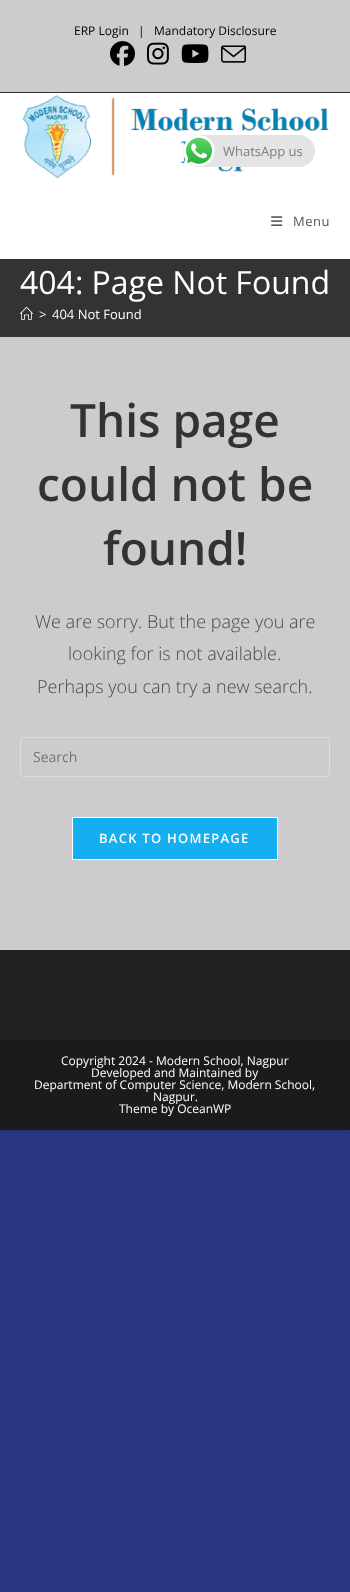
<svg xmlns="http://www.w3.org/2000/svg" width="350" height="1592">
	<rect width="100%" height="100%" fill="#293780" />
	<rect x="0" y="1" width="350" height="1130" fill="#000000" fill-opacity="0.15" filter="blur(2px)" />
	<rect x="0" y="0" width="350" height="950" fill="#CCCCCC" />
	<rect x="0" y="92" width="350" height="1" fill="#333333" />
	<g font-family="Open Sans" font-size="12" fill="#000000">
		<text x="74" y="35">ERP Login</text>
		<text x="138" y="35">|</text>
		<text x="154" y="35">Mandatory Disclosure</text>
	</g>
	<image x="110" y="41" width="25" height="25" href="assets/img1.png" />
	<image x="147" y="42" width="22" height="23" href="assets/img2.png" />
	<image x="181" y="44" width="28" height="19" href="assets/img3.png" />
	<image x="221" y="45" width="26" height="18" href="assets/img4.png" />
	<rect x="0" y="93" width="350" height="166" fill="#FFFFFF" />
	<image x="22" y="95" width="307" height="84" href="assets/img5.png" />
	<image x="271" y="216" width="12" height="10" href="assets/img6.png" />
	<text x="293" y="226" font-family="Open Sans" font-size="13" letter-spacing="0.5" fill="#555555">Menu</text>
	<rect x="0" y="259" width="350" height="78" fill="#333333" />
	<text x="20" y="294" font-family="Open Sans" font-size="32" fill="#FFFFFF">404: Page Not Found</text>
	<image x="20" y="306" width="13" height="14" href="assets/img7.png" />
	<g font-family="Open Sans" font-size="13" fill="#FFFFFF">
		<text x="39" y="319">&gt;</text>
		<text x="52" y="319">404 Not Found</text>
	</g>
	<g font-family="Open Sans" font-size="46" font-weight="600" fill="#333333">
		<text x="70" y="437">This page</text>
		<text x="37" y="501">could not be</text>
		<text x="103" y="565">found!</text>
	</g>
	<g font-family="Open Sans" font-size="18" font-weight="300" fill="#4A4A4A">
		<text x="35" y="628">We are sorry. But the page you are</text>
		<text x="68" y="660">looking for is not available.</text>
		<text x="37" y="693">Perhaps you can try a new search.</text>
	</g>
	<rect x="20.5" y="737.5" width="309" height="39" rx="2.5" fill="none" stroke="#DDDDDD" />
	<text x="33" y="762" font-family="Open Sans" font-size="14" fill="#757575">Search</text>
	<rect x="72.5" y="817.5" width="205" height="42" fill="#13AFF0" stroke="#FFFFFF" />
	<text x="99" y="843" font-family="Open Sans" font-size="13" font-weight="600" letter-spacing="1.25" fill="#FFFFFF">BACK TO HOMEPAGE</text>
	<rect x="0" y="950" width="350" height="90" fill="#222222" />
	<rect x="0" y="1040" width="350" height="90" fill="#1B1B1B" />
	<g font-family="Open Sans" font-size="12" fill="#FFFFFF">
		<text x="61" y="1065">Copyright 2024 - Modern School, Nagpur</text>
		<text x="91" y="1077">Developed and Maintained by</text>
		<text x="34" y="1089">Department of Computer Science, Modern School,</text>
		<text x="153" y="1101">Nagpur.</text>
		<text x="119" y="1113">Theme by OceanWP</text>
	</g>
	<rect x="183" y="135" width="132" height="32" rx="16" fill="#E4E4E4" />
	<image x="183" y="135" width="32" height="32" href="assets/img8.png" />
	<text x="223" y="156" font-family="Open Sans" font-size="13" fill="#7F7D7D">WhatsApp us</text>
</svg>
